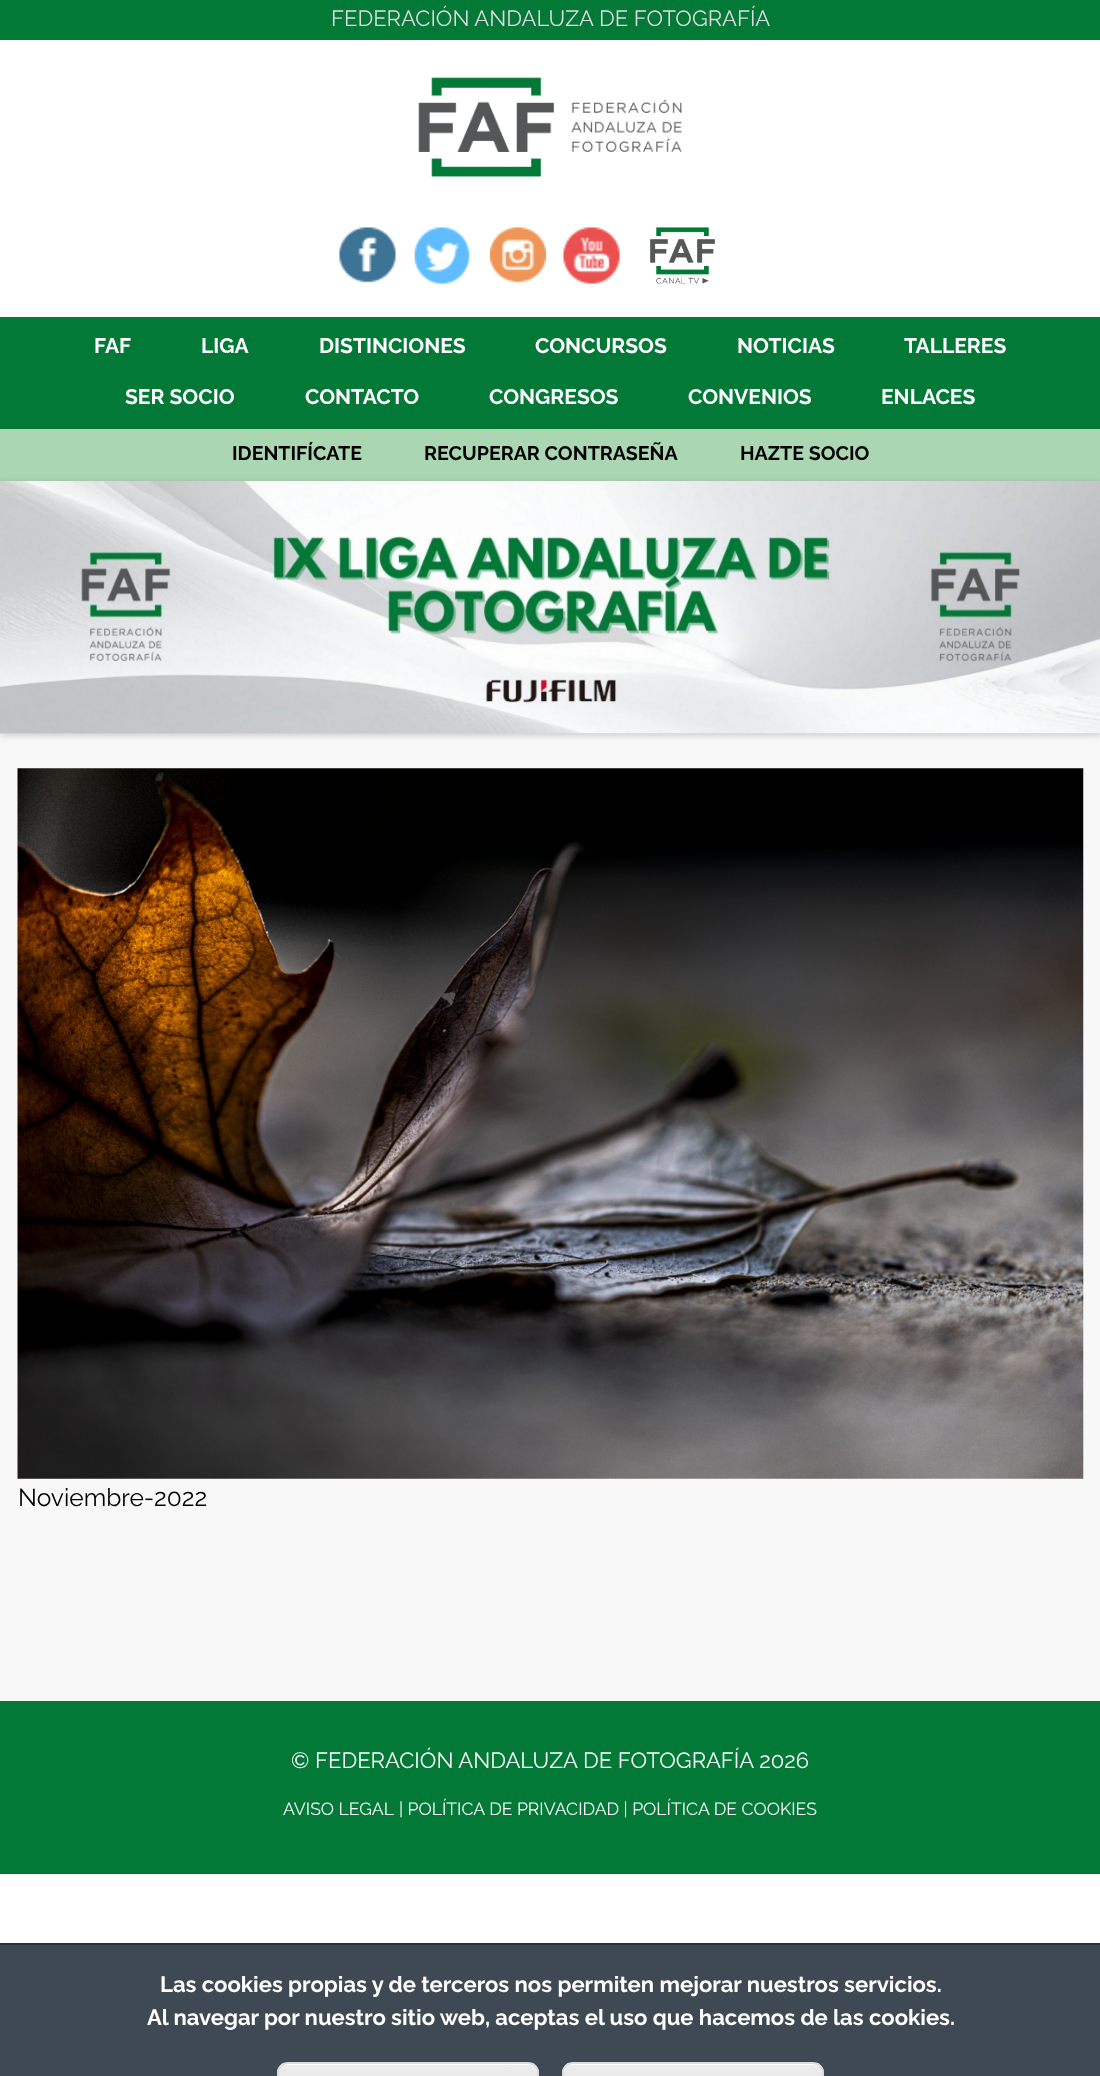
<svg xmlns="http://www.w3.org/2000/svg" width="1100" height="2076">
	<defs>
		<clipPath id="clip1"><rect x="277" y="2062" width="262" height="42" rx="11" /></clipPath>
		<linearGradient id="g1" gradientUnits="userSpaceOnUse" x1="278" y1="2063" x2="278" y2="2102"><stop offset="0.05" stop-color="#EDEDED" /><stop offset="1" stop-color="#DFDFDF" /></linearGradient>
		<clipPath id="clip2"><rect x="562" y="2062" width="262" height="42" rx="11" /></clipPath>
		<linearGradient id="g2" gradientUnits="userSpaceOnUse" x1="564" y1="2063" x2="564" y2="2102"><stop offset="0.05" stop-color="#EDEDED" /><stop offset="1" stop-color="#DFDFDF" /></linearGradient>
	</defs>
	<rect width="100%" height="100%" fill="#FFFFFF" />
	<rect x="0" y="733" width="1100" height="968" fill="#F8F8F8" />
	<rect x="0" y="0" width="1100" height="40" fill="#027936" />
	<text x="331" y="26" font-family="Raleway" font-size="22.05" fill="#DDDDDD">FEDERACIÓN ANDALUZA DE FOTOGRAFÍA</text>
	<image x="418" y="77" width="264" height="101" href="assets/img1.png" />
	<image x="339" y="227" width="57" height="56" href="assets/img2.png" />
	<image x="414" y="227" width="56" height="57" href="assets/img3.png" />
	<image x="490" y="227" width="56" height="56" href="assets/img4.png" />
	<image x="563" y="227" width="57" height="57" href="assets/img5.png" />
	<image x="650" y="227" width="65" height="57" href="assets/img6.png" />
	<rect x="0" y="317" width="1100" height="112" fill="#027936" />
	<g font-family="Raleway" font-size="21" font-weight="700" fill="#FFFFFF">
		<text x="94" y="353">FAF</text>
		<text x="201" y="353">LIGA</text>
		<text x="319" y="353">DISTINCIONES</text>
		<text x="535" y="353">CONCURSOS</text>
		<text x="737" y="353">NOTICIAS</text>
		<text x="904" y="353">TALLERES</text>
		<text x="125" y="404">SER SOCIO</text>
		<text x="305" y="404">CONTACTO</text>
		<text x="489" y="404">CONGRESOS</text>
		<text x="688" y="404">CONVENIOS</text>
		<text x="881" y="404">ENLACES</text>
	</g>
	<rect x="0" y="429" width="1100" height="52" fill="#AAD7B2" />
	<g font-family="Raleway" font-size="19.6" font-weight="700" fill="#000000">
		<text x="232" y="460">IDENTIFÍCATE</text>
		<text x="424" y="460">RECUPERAR CONTRASEÑA</text>
		<text x="740" y="460">HAZTE SOCIO</text>
	</g>
	<rect x="0" y="483" width="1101" height="252" fill="#000000" fill-opacity="0.2" filter="blur(3.5px)" />
	<image x="0" y="481" width="1100" height="253" href="assets/img7.png" />
	<image x="17" y="768" width="1067" height="711" href="assets/img8.png" />
	<text x="18" y="1506" font-family="Raleway" font-size="24.5" fill="#000000">Noviembre-2022</text>
	<rect x="0" y="1701" width="1100" height="173" fill="#027936" />
	<text x="291" y="1768" font-family="Raleway" font-size="22.05" fill="#FFFFFF">© FEDERACIÓN ANDALUZA DE FOTOGRAFÍA 2026</text>
	<g font-family="Raleway" font-size="17.6" fill="#FFFFFF">
		<text x="283" y="1815">AVISO LEGAL</text>
		<text x="399" y="1815">| POLÍTICA DE PRIVACIDAD | POLÍTICA DE COOKIES</text>
	</g>
	<rect x="0" y="1945" width="1100" height="131" fill="#3F4953" />
	<rect x="0" y="1943" width="1100" height="2" fill="#29333B" />
	<g font-family="Raleway" font-size="22.05" font-weight="700" fill="#FFFFFF">
		<text x="160" y="1992">Las cookies propias y de terceros nos permiten mejorar nuestros servicios.</text>
		<text x="147" y="2025">Al navegar por nuestro sitio web, aceptas el uso que hacemos de las cookies.</text>
	</g>
	<g clip-path="url(#clip1)">
		<rect x="277" y="2063" width="262" height="13" fill="url(#g1)" />
	</g>
	<path d="M287 2065H528C533 2065 537 2069 537 2074V2072C537 2067 533 2063 528 2063H287C282 2063 278 2067 278 2072V2074C278 2069 282 2065 287 2065Z" fill="#FFFFFF" />
	<rect x="278" y="2063" width="260" height="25" rx="10" fill="none" stroke="#DCDCDC" stroke-width="2" />
	<g clip-path="url(#clip2)">
		<rect x="562" y="2063" width="262" height="13" fill="url(#g2)" />
	</g>
	<path d="M572 2065H814C823 2065 822 2075 822 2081V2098C823 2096 823 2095 823 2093V2072C823 2067 819 2063 814 2063H573C568 2063 564 2067 564 2072V2074C564 2069 567 2065 572 2065Z" fill="#FFFFFF" />
	<rect x="563" y="2063" width="260" height="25" rx="10" fill="none" stroke="#DCDCDC" stroke-width="2" />
</svg>
